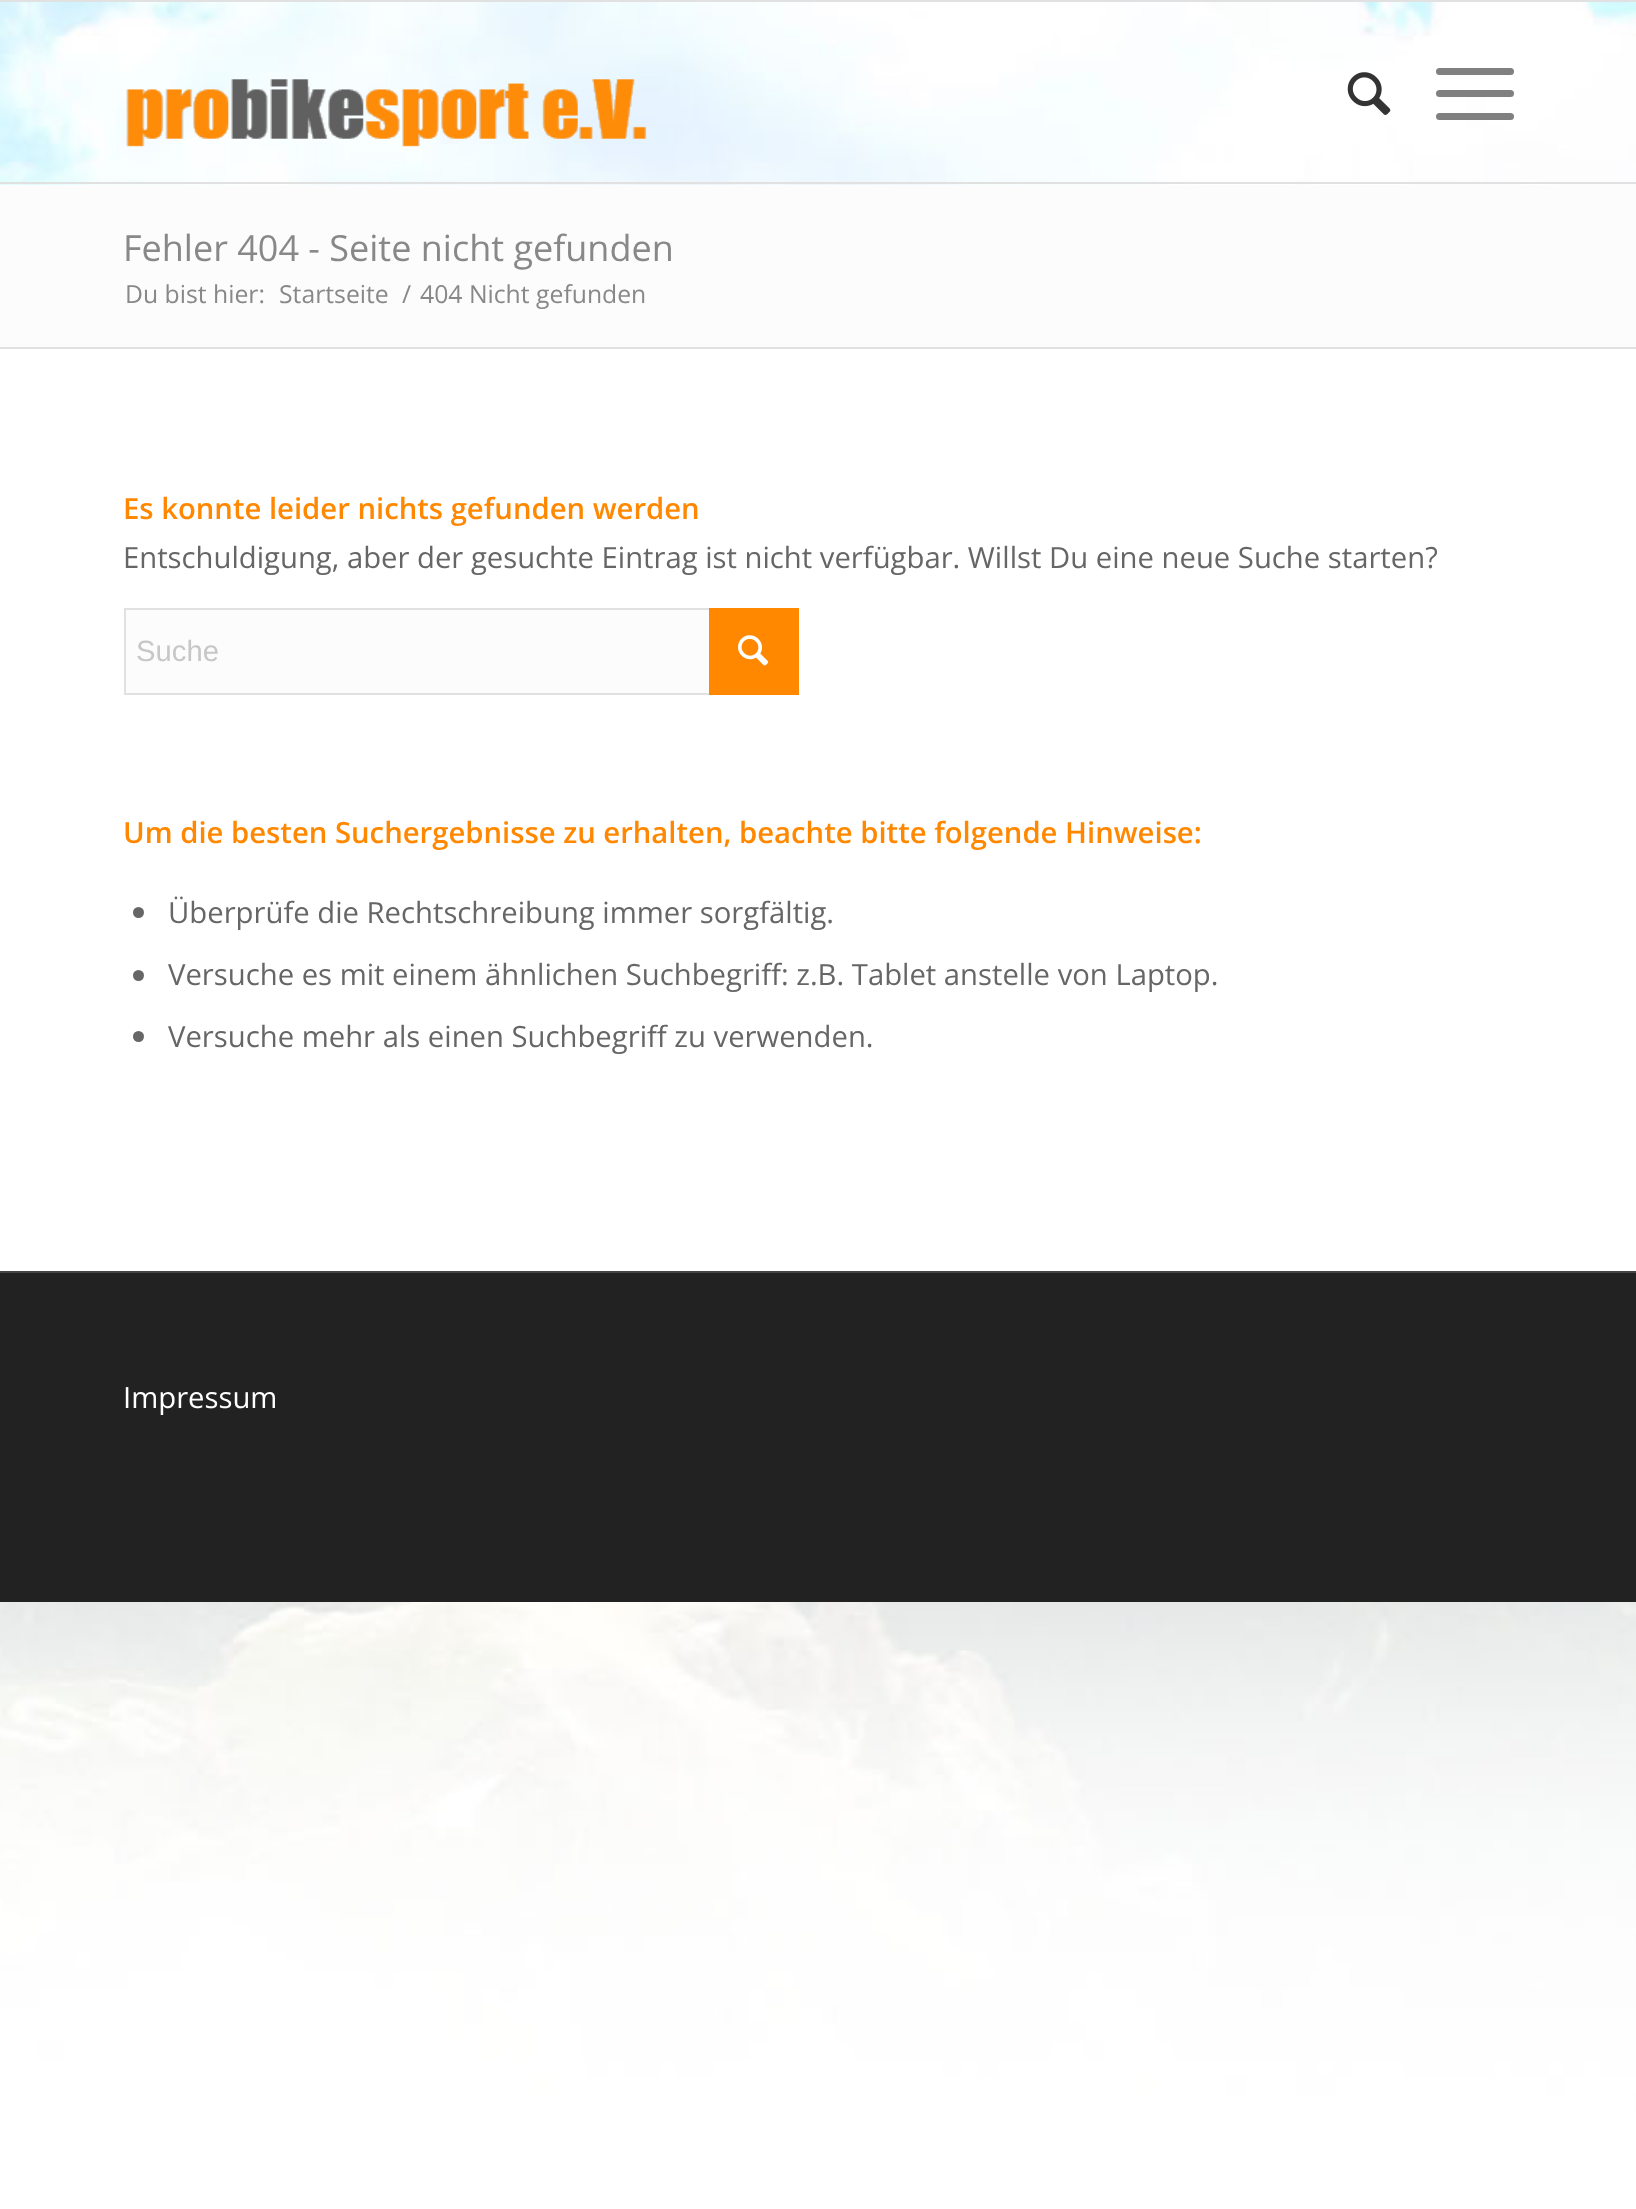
<svg xmlns="http://www.w3.org/2000/svg" width="1636" height="2209">
	<rect width="100%" height="100%" fill="#FFFFFF" />
	<rect x="0" y="0" width="1636" height="2" fill="#E1E1E1" />
	<image x="0" y="2" width="1636" height="183" href="assets/img3.png" />
	<rect x="0" y="182" width="1636" height="2" fill="#E1E1E1" />
	<image x="126" y="79" width="521" height="68" href="assets/img1.png" />
	<image x="1347" y="72" width="44" height="43" href="assets/img2.png" />
	<rect x="1436" y="90" width="78" height="7" rx="3.5" fill="#808080" />
	<rect x="1436" y="68" width="78" height="7" rx="3.5" fill="#808080" />
	<rect x="1436" y="113" width="78" height="7" rx="3.5" fill="#808080" />
	<rect x="0" y="185" width="1636" height="162" fill="#FCFCFC" />
	<text x="123" y="261" font-family="'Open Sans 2'" font-size="36" fill="#888888">Fehler 404 - Seite nicht gefunden</text>
	<g font-family="Open Sans" font-size="24.75" fill="#888888">
		<text x="125" y="303">Du bist hier:</text>
		<text x="279" y="303">Startseite</text>
		<text x="402" y="303">/</text>
		<text x="420" y="303">404 Nicht gefunden</text>
	</g>
	<rect x="0" y="347" width="1636" height="2" fill="#E1E1E1" />
	<text x="123" y="519" font-family="Open Sans" font-size="29.25" font-weight="600" fill="#FF8800">Es konnte leider nichts gefunden werden</text>
	<text x="123" y="568" font-family="Open Sans" font-size="29.25" fill="#666666">Entschuldigung, aber der gesuchte Eintrag ist nicht verfügbar. Willst Du eine neue Suche starten?</text>
	<rect x="126" y="610" width="583" height="83" fill="#FCFCFC" />
	<rect x="125" y="609" width="673" height="85" fill="none" stroke="#E1E1E1" stroke-width="2" />
	<text x="136" y="661" font-family="Liberation Sans" font-size="29.25" fill="#C7C7C7">Suche</text>
	<rect x="709" y="608" width="90" height="87" fill="#FF8800" />
	<image x="738" y="635" width="31" height="31" href="assets/img4.png" />
	<text x="123" y="843" font-family="Open Sans" font-size="29.25" font-weight="600" fill="#FF8800">Um die besten Suchergebnisse zu erhalten, beachte bitte folgende Hinweise:</text>
	<circle cx="138.5" cy="912.5" r="5.5" fill="#666666" />
	<text x="168" y="923" font-family="Open Sans" font-size="29.25" fill="#666666">Überprüfe die Rechtschreibung immer sorgfältig.</text>
	<circle cx="138.5" cy="975.5" r="5.5" fill="#666666" />
	<text x="168" y="985" font-family="Open Sans" font-size="29.25" fill="#666666">Versuche es mit einem ähnlichen Suchbegriff: z.B. Tablet anstelle von Laptop.</text>
	<circle cx="138.5" cy="1036.5" r="5.5" fill="#666666" />
	<text x="168" y="1047" font-family="Open Sans" font-size="29.25" fill="#666666">Versuche mehr als einen Suchbegriff zu verwenden.</text>
	<rect x="0" y="1273" width="1636" height="329" fill="#222222" />
	<rect x="0" y="1271" width="1636" height="2" fill="#444444" />
	<text x="123" y="1408" font-family="Open Sans" font-size="29.25" fill="#FFFFFF">Impressum</text>
	<image x="0" y="1602" width="1636" height="607" href="assets/img5.png" />
</svg>
